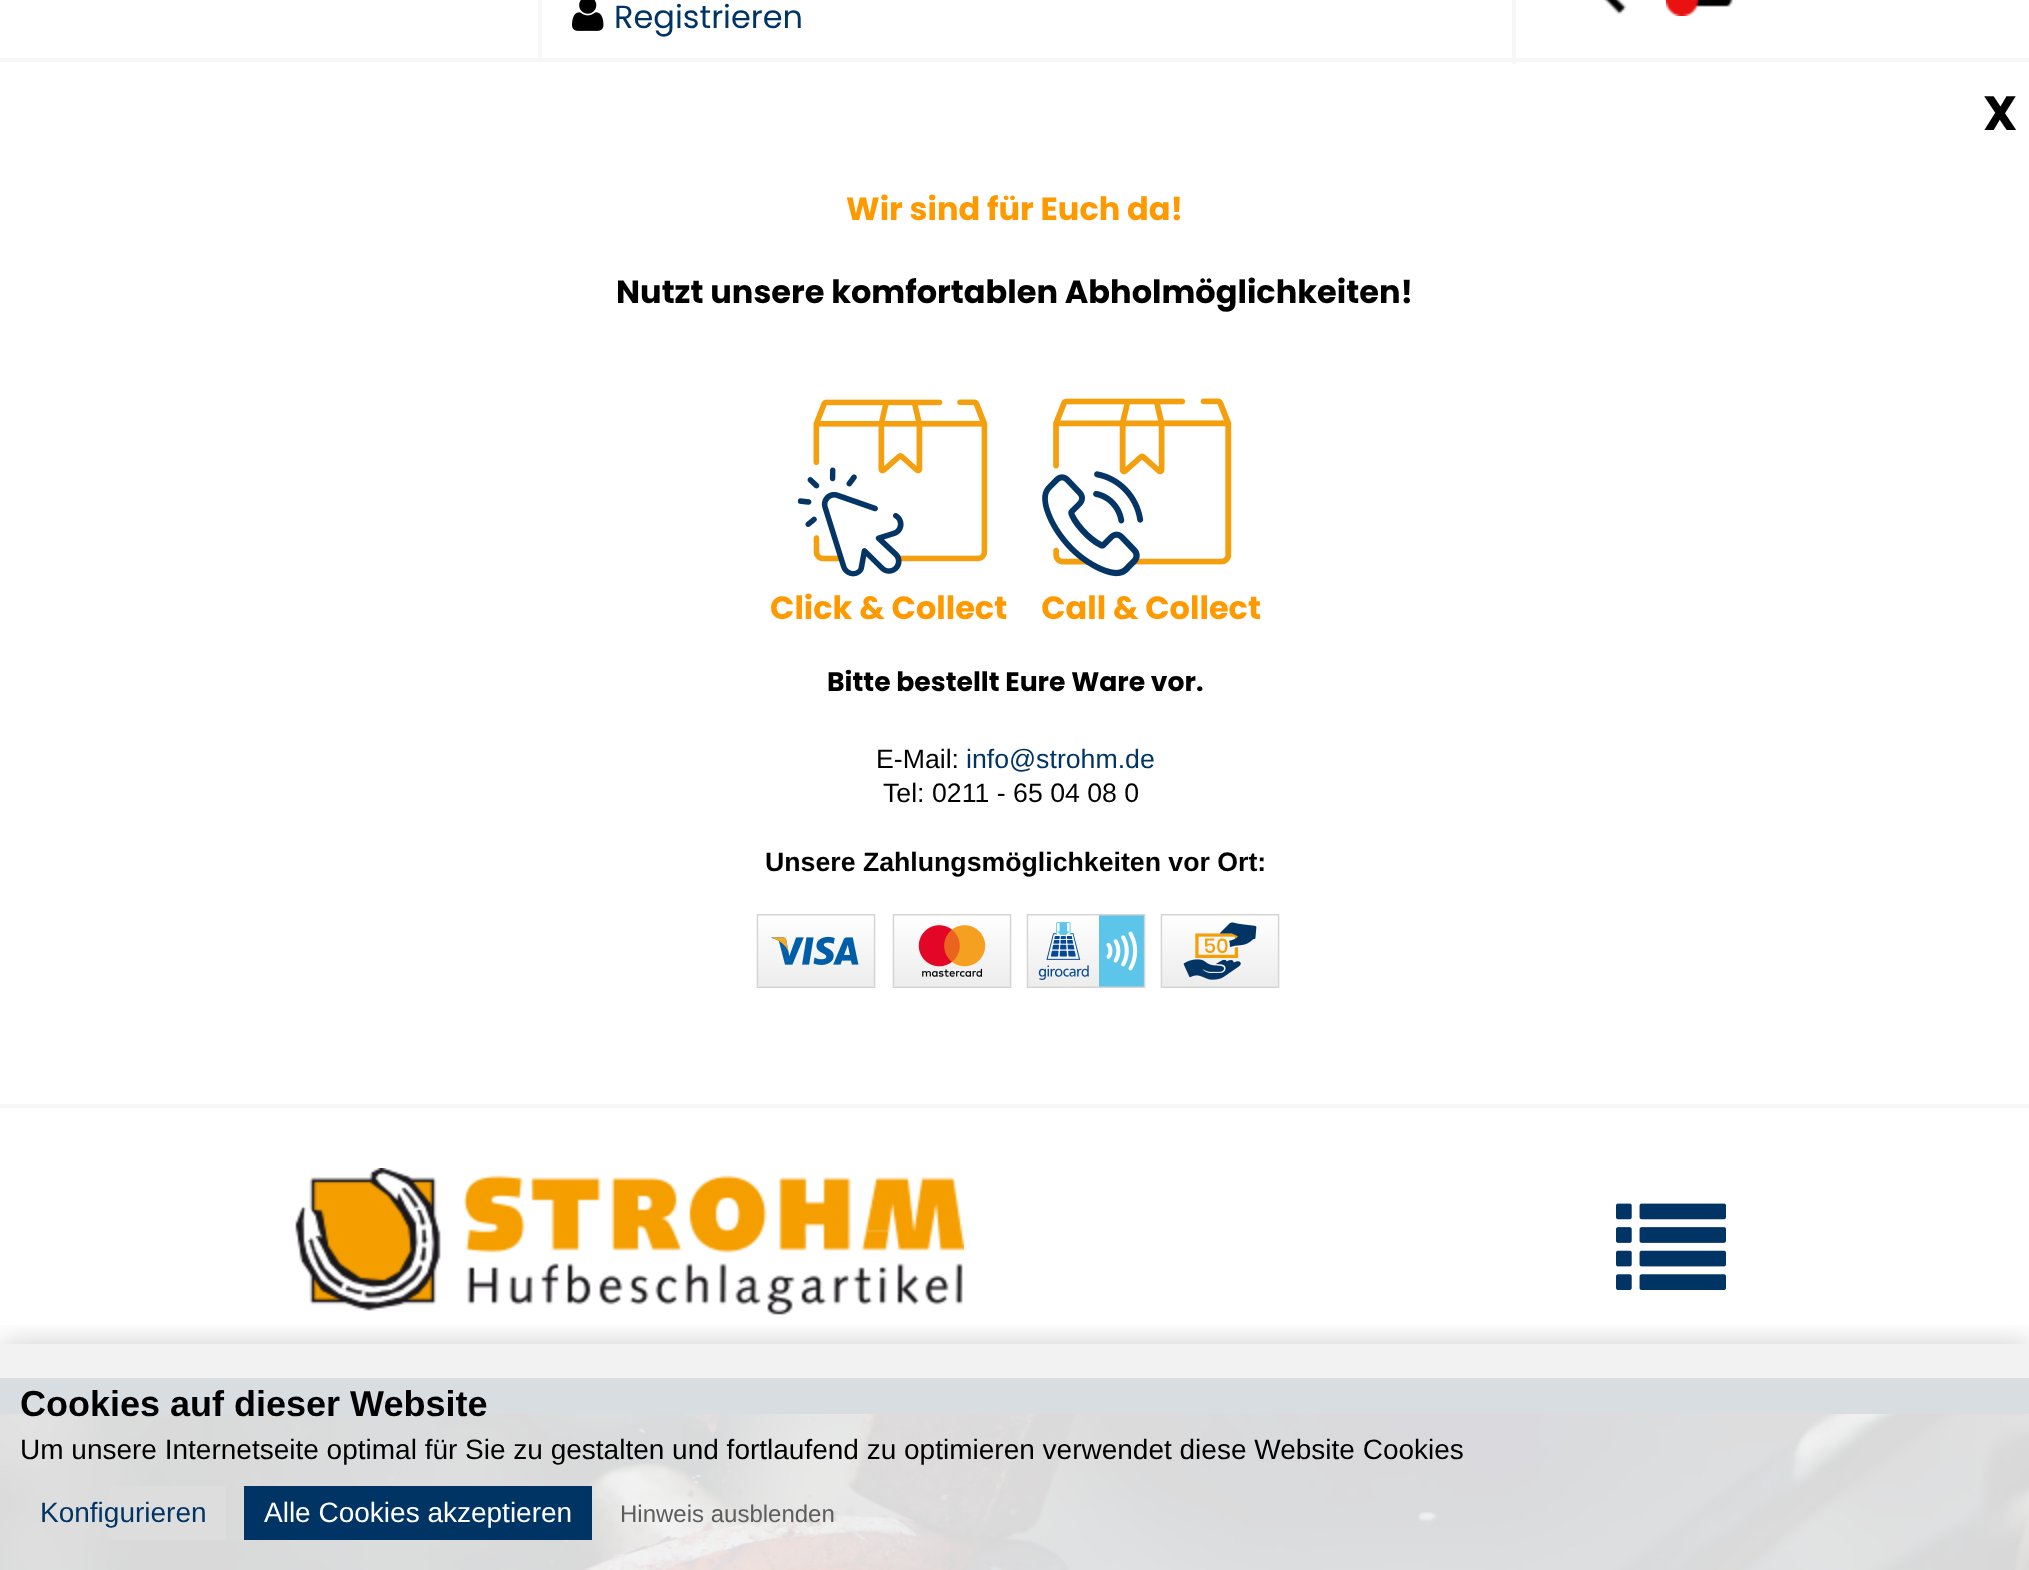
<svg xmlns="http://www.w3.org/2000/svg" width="2029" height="1570">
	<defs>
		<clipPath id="clip1"><rect x="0" y="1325" width="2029" height="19" /></clipPath>
	</defs>
	<rect width="100%" height="100%" fill="#FFFFFF" />
	<rect x="0" y="1344" width="2029" height="34" fill="#F2F2F2" />
	<rect x="0" y="58" width="2029" height="4" fill="#F7F7F7" />
	<rect x="538" y="0" width="4" height="58" fill="#F7F7F7" />
	<image x="572" y="0" width="32" height="31" href="assets/img1.png" />
	<text x="614" y="28" font-family="Poppins" font-size="32" fill="#003464">Registrieren</text>
	<rect x="1512" y="0" width="4" height="64" fill="#F7F7F7" />
	<image x="1603" y="0" width="23" height="14" href="assets/img2.png" />
	<image x="1666" y="0" width="67" height="16" href="assets/img3.png" />
	<rect x="0" y="1104" width="2029" height="4" fill="#F7F7F7" />
	<text x="1983" y="130" font-family="Poppins" font-size="48" font-weight="700" fill="#000000">X</text>
	<text x="846" y="220" font-family="Poppins" font-size="32" font-weight="700" fill="#FF9900">Wir sind für Euch da!</text>
	<text x="616" y="303" font-family="Poppins" font-size="32" font-weight="700" fill="#000000">Nutzt unsere komfortablen Abholmöglichkeiten!</text>
	<image x="798" y="399" width="190" height="178" href="assets/img4.png" />
	<image x="1042" y="398" width="190" height="179" href="assets/img5.png" />
	<text x="770" y="619" font-family="Poppins" font-size="32" font-weight="700" fill="#FF9900" xml:space="preserve">Click &amp; Collect     Call &amp; Collect</text>
	<text x="827" y="691" font-family="Poppins" font-size="26.7" font-weight="700" fill="#000000">Bitte bestellt Eure Ware vor.</text>
	<text x="876" y="768" font-family="Liberation Sans" font-size="26.7" fill="#000000">E-Mail:</text>
	<text x="966" y="768" font-family="Liberation Sans" font-size="26.7" fill="#003464">info@strohm.de</text>
	<text x="883" y="802" font-family="Liberation Sans" font-size="26.7" fill="#000000">Tel: 0211 - 65 04 08 0</text>
	<text x="765" y="871" font-family="Liberation Sans" font-size="26.7" font-weight="700" fill="#000000">Unsere Zahlungsmöglichkeiten vor Ort:</text>
	<image x="756" y="914" width="120" height="74" href="assets/img6.png" />
	<image x="892" y="914" width="120" height="74" href="assets/img7.png" />
	<image x="1026" y="914" width="120" height="74" href="assets/img8.png" />
	<image x="1160" y="914" width="120" height="74" href="assets/img9.png" />
	<rect x="0" y="1378" width="2029" height="36" fill="#D8DDE2" />
	<image x="295" y="1168" width="669" height="147" href="assets/img10.png" />
	<image x="1616" y="1203" width="110" height="87" href="assets/img11.png" />
	<image x="0" y="1414" width="2029" height="156" href="assets/img12.png" />
	<g clip-path="url(#clip1)">
		<rect x="0" y="1344" width="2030" height="226" fill="#000000" fill-opacity="0.2" filter="blur(15px)" />
	</g>
	<text x="20" y="1416" font-family="Liberation Sans" font-size="36" font-weight="700" fill="#000000">Cookies auf dieser Website</text>
	<text x="20" y="1459" font-family="Liberation Sans" font-size="28" fill="#000000">Um unsere Internetseite optimal für Sie zu gestalten und fortlaufend zu optimieren verwendet diese Website Cookies</text>
	<rect x="109" y="1486" width="117" height="54" fill="#DDDDDD" />
	<text x="40" y="1522" font-family="Liberation Sans" font-size="28" fill="#003464">Konfigurieren</text>
	<rect x="244" y="1486" width="348" height="54" fill="#003464" />
	<text x="264" y="1522" font-family="Liberation Sans" font-size="28" fill="#FFFFFF">Alle Cookies akzeptieren</text>
	<text x="620" y="1522" font-family="Liberation Sans" font-size="24" fill="#5E5D5D">Hinweis ausblenden</text>
</svg>
